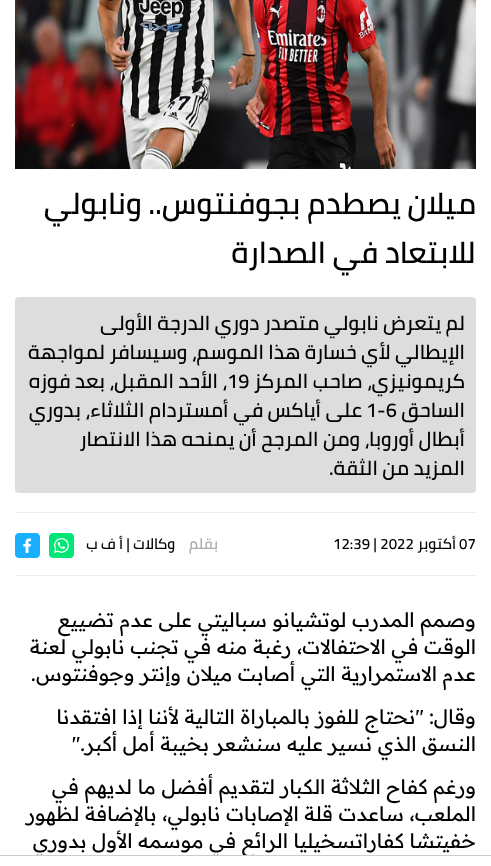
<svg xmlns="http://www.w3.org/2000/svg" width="491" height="866">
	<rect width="100%" height="100%" fill="#FFFFFF" />
	<image x="15" y="0" width="461" height="169" href="assets/img1.png" />
	<g font-family="Cairo" font-size="30" font-weight="600" direction="rtl" fill="#000000">
		<text x="476" y="214">ميلان يصطدم بجوفنتوس.. ونابولي</text>
		<text x="476" y="263">للابتعاد في الصدارة</text>
	</g>
	<rect x="15" y="297" width="461" height="196" rx="4" fill="#DDDDDD" />
	<g font-family="Cairo" font-size="20" font-weight="600" direction="rtl" fill="#000000">
		<text x="465" y="330">لم يتعرض نابولي متصدر دوري الدرجة الأولى</text>
		<text x="465" y="359">الإيطالي لأي خسارة هذا الموسم، وسيسافر لمواجهة</text>
		<text x="465" y="388">كريمونيزي، صاحب المركز</text>
	</g>
	<text x="227" y="388" font-family="Cairo" font-size="20" font-weight="600" fill="#000000">19</text>
	<g font-family="Cairo" font-size="20" font-weight="600" direction="rtl" fill="#000000">
		<text x="227" y="388">، الأحد المقبل، بعد فوزه</text>
		<text x="465" y="417">الساحق</text>
	</g>
	<text x="366" y="417" font-family="Cairo" font-size="20" font-weight="600" fill="#000000">1-6</text>
	<g font-family="Cairo" font-size="20" font-weight="600" direction="rtl" fill="#000000">
		<text x="362" y="417">على أياكس في أمستردام الثلاثاء، بدوري</text>
		<text x="465" y="446">أبطال أوروبا، ومن المرجح أن يمنحه هذا الانتصار</text>
		<text x="465" y="475">المزيد من الثقة.</text>
	</g>
	<rect x="15" y="512" width="461" height="1" fill="#EEEEEE" />
	<rect x="15" y="575" width="461" height="1" fill="#EEEEEE" />
	<text x="459" y="549" font-family="Cairo" font-size="15" font-weight="600" fill="#000000">07</text>
	<text x="456" y="549" font-family="Cairo" font-size="15" font-weight="600" direction="rtl" fill="#000000">أكتوبر</text>
	<text x="333" y="549" font-family="Cairo" font-size="15" font-weight="600" fill="#000000">12:39 | 2022</text>
	<text x="218" y="549" font-family="Cairo" font-size="15" font-weight="600" direction="rtl" fill="#ACACAC">بقلم</text>
	<g font-family="Cairo" font-size="15" font-weight="600" direction="rtl" fill="#000000">
		<text x="175" y="549">وكالات</text>
		<text x="130" y="549">| أ ف ب</text>
	</g>
	<image x="49" y="533" width="25" height="25" href="assets/img2.png" />
	<image x="15" y="533" width="25" height="25" href="assets/img3.png" />
	<g font-family="Readex Pro" font-size="20" direction="rtl" fill="#000000">
		<text x="476" y="627">وصمم المدرب لوتشيانو سباليتي على عدم تضييع</text>
		<text x="476" y="654">الوقت في الاحتفالات، رغبة منه في تجنب نابولي لعنة</text>
		<text x="476" y="681">عدم الاستمرارية التي أصابت ميلان وإنتر وجوفنتوس</text>
	</g>
	<text x="31" y="681" font-family="Readex Pro" font-size="20" fill="#000000">.</text>
	<g font-family="Readex Pro" font-size="20" direction="rtl" fill="#000000">
		<text x="476" y="724">وقال: "نحتاج للفوز بالمباراة التالية لأننا إذا افتقدنا</text>
		<text x="476" y="751">النسق الذي نسير عليه سنشعر بخيبة أمل أكبر</text>
	</g>
	<text x="72" y="751" font-family="Readex Pro" font-size="20" fill="#000000">".</text>
	<g font-family="Readex Pro" font-size="20" direction="rtl" fill="#000000">
		<text x="476" y="794">ورغم كفاح الثلاثة الكبار لتقديم أفضل ما لديهم في</text>
		<text x="476" y="821">الملعب، ساعدت قلة الإصابات نابولي، بالإضافة لظهور</text>
		<text x="476" y="848">خفيتشا كفاراتسخيليا الرائع في موسمه الأول بدوري</text>
	</g>
	<rect x="36" y="856" width="219" height="2" fill="#FFFFFF" />
	<rect x="0" y="855" width="491" height="1" fill="#CCCCCC" />
</svg>
